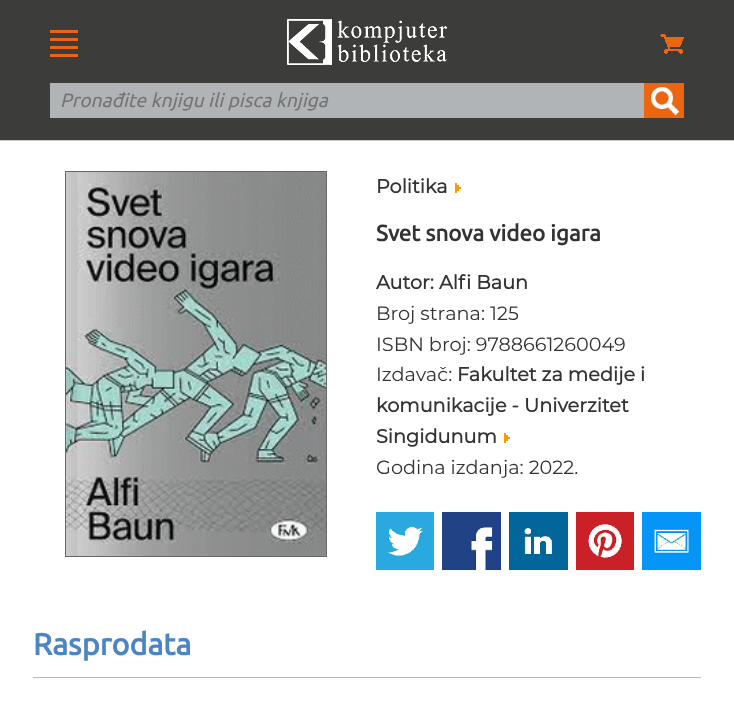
<svg xmlns="http://www.w3.org/2000/svg" width="734" height="706">
	<rect width="100%" height="100%" fill="#3C3C3B" />
	<rect x="0" y="140" width="734" height="1" fill="#C5C9CA" />
	<image x="50" y="30" width="28" height="27" href="assets/img1.png" />
	<image x="287" y="19" width="160" height="46" href="assets/img2.png" />
	<image x="660" y="34" width="24" height="20" href="assets/img3.png" />
	<rect x="50" y="83" width="594" height="35" fill="#B0B4B7" />
	<text x="60" y="107" font-family="Ubuntu" font-size="19.25" font-style="italic" fill="#757575">Pronađite knjigu ili pisca knjiga</text>
	<image x="644" y="83" width="40" height="35" href="assets/img4.png" />
	<rect x="0" y="141" width="734" height="565" fill="#FFFFFF" />
	<rect x="65.5" y="171.5" width="261" height="385" fill="none" stroke="#666666" />
	<image x="66" y="172" width="260" height="384" href="assets/img5.png" />
	<text x="376" y="193" font-family="Montserrat" font-size="19.25" font-weight="700" fill="#333333">Politika</text>
	<image x="455" y="183" width="6" height="10" href="assets/img6.png" />
	<text x="376" y="241" font-family="Ubuntu" font-size="22.4" font-weight="700" fill="#333333">Svet snova video igara</text>
	<text x="376" y="289" font-family="Montserrat" font-size="19.25" font-weight="700" fill="#333333">Autor: Alfi Baun</text>
	<g font-family="Montserrat" font-size="19.25" fill="#333333">
		<text x="376" y="320">Broj strana: 125</text>
		<text x="376" y="351">ISBN broj: 9788661260049</text>
		<text x="376" y="381">Izdavač:</text>
	</g>
	<g font-family="Montserrat" font-size="19.25" font-weight="700" fill="#333333">
		<text x="457" y="381">Fakultet za medije i</text>
		<text x="376" y="412">komunikacije - Univerzitet</text>
		<text x="376" y="443">Singidunum</text>
	</g>
	<image x="504" y="433" width="6" height="10" href="assets/img6.png" />
	<text x="376" y="474" font-family="Montserrat" font-size="19.25" fill="#333333">Godina izdanja: 2022.</text>
	<image x="376" y="512" width="58" height="58" href="assets/img7.png" />
	<image x="442" y="512" width="59" height="58" href="assets/img8.png" />
	<image x="509" y="512" width="59" height="58" href="assets/img9.png" />
	<image x="576" y="512" width="58" height="58" href="assets/img10.png" />
	<image x="642" y="512" width="59" height="58" href="assets/img11.png" />
	<text x="33" y="655" font-family="Ubuntu" font-size="30.5" font-weight="700" fill="#4C84C4">Rasprodata</text>
	<rect x="33" y="677" width="668" height="1" fill="#B6B6D2" />
</svg>
